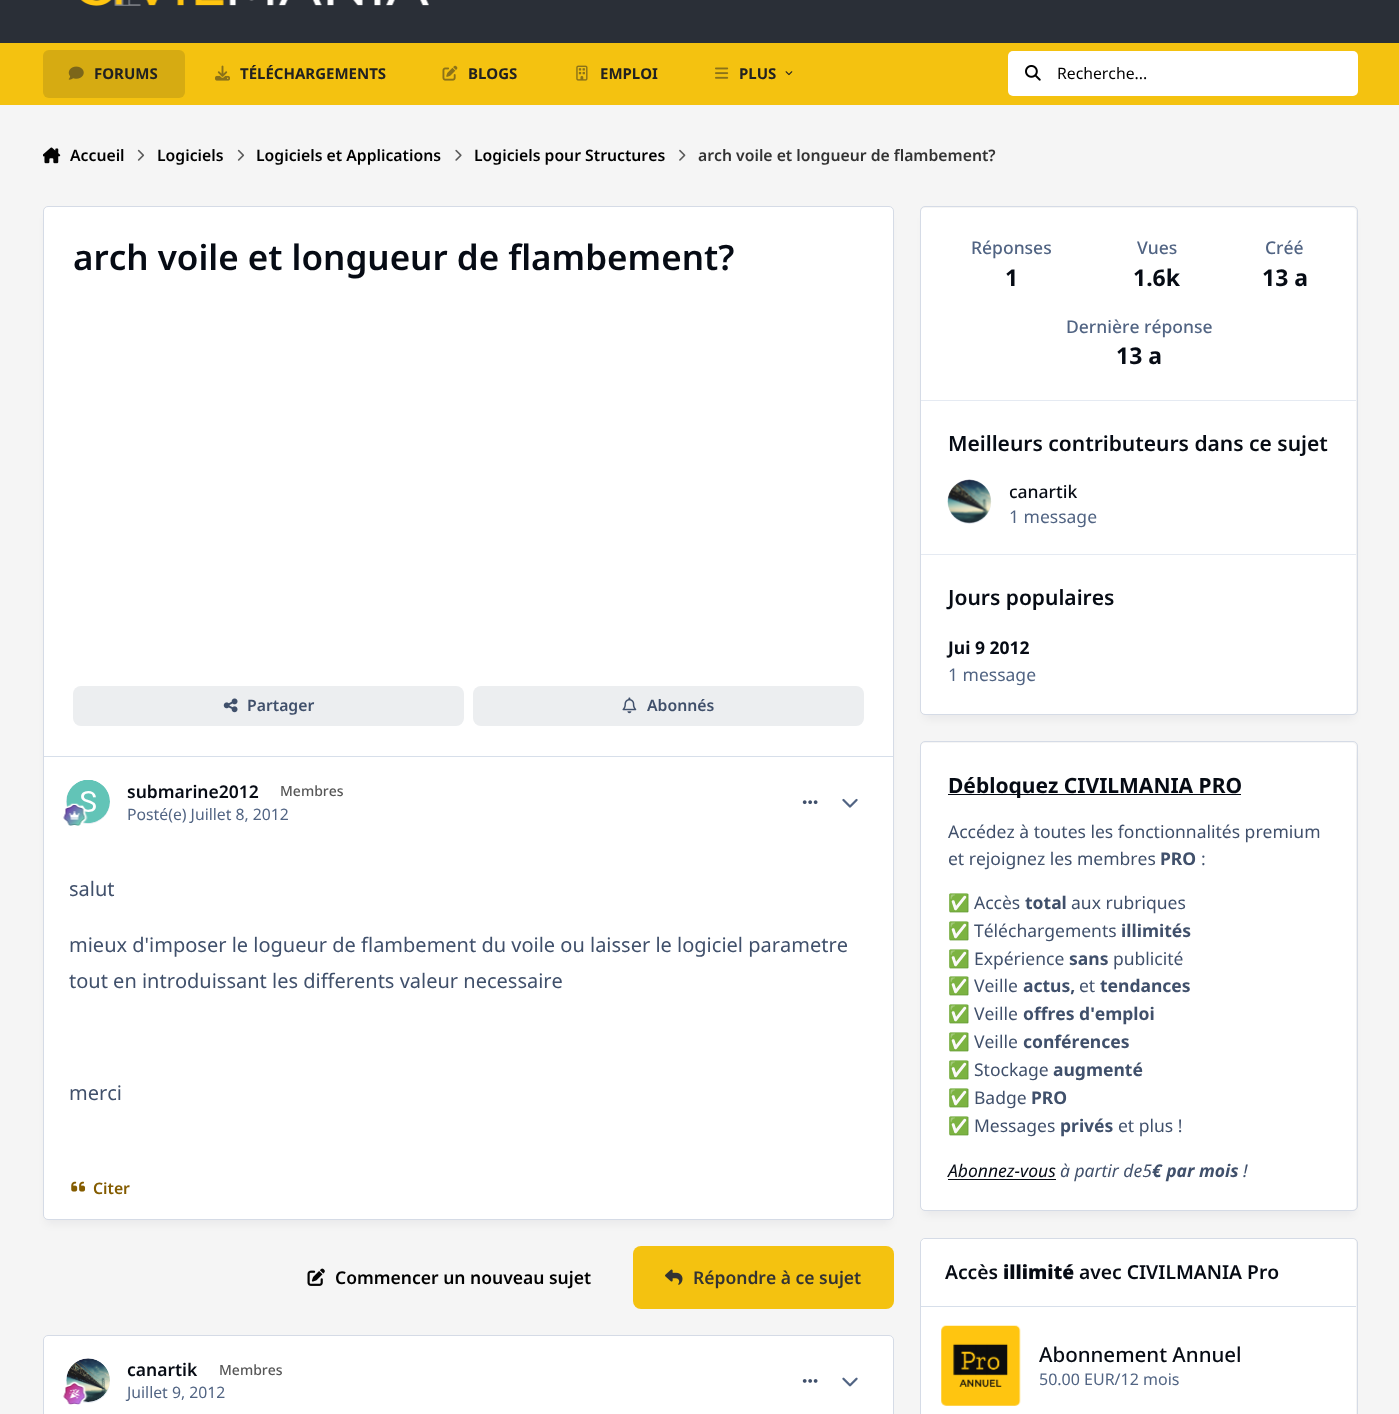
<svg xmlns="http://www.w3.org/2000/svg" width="1399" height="1414">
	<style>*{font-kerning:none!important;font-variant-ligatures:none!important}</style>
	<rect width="100%" height="100%" fill="#F5F5F5" />
	<rect x="0" y="0" width="1399" height="43" fill="#2A2F37" />
	<image x="81" y="0" width="348" height="6" href="assets/img1.png" />
	<rect x="0" y="43" width="1399" height="62" fill="#F4C210" />
	<rect x="43" y="50" width="142" height="48" rx="6" fill="#D6AB12" />
	<image x="68" y="66" width="16" height="14" href="assets/img2.png" />
	<text x="94" y="79" font-family="Noto Sans" font-size="15" font-weight="700" fill="#212121">FORUMS</text>
	<image x="215" y="65" width="15" height="16" href="assets/img3.png" />
	<text x="240" y="79" font-family="Noto Sans" font-size="15" font-weight="700" fill="#212121">TÉLÉCHARGEMENTS</text>
	<image x="442" y="65" width="16" height="16" href="assets/img4.png" />
	<text x="468" y="79" font-family="Noto Sans" font-size="15" font-weight="700" fill="#212121">BLOGS</text>
	<image x="576" y="65" width="12" height="16" href="assets/img5.png" />
	<text x="600" y="79" font-family="Noto Sans" font-size="15" font-weight="700" fill="#212121">EMPLOI</text>
	<image x="715" y="67" width="14" height="12" href="assets/img6.png" />
	<text x="739" y="79" font-family="Noto Sans" font-size="15" font-weight="700" fill="#212121">PLUS</text>
	<image x="785" y="71" width="8" height="5" href="assets/img7.png" />
	<rect x="1008" y="51" width="350" height="45" rx="5" fill="#FFFFFF" />
	<image x="1025" y="65" width="16" height="16" href="assets/img8.png" />
	<text x="1057" y="79" font-family="Noto Sans" font-size="15.75" fill="#000000">Recherche...</text>
	<image x="43" y="147" width="18" height="17" href="assets/img9.png" />
	<text x="70" y="161" font-family="Noto Sans" font-size="15.75" font-weight="600" fill="#000000">Accueil</text>
	<image x="137" y="149" width="8" height="12" href="assets/img10.png" />
	<text x="157" y="161" font-family="Noto Sans" font-size="15.75" font-weight="600" fill="#000000">Logiciels</text>
	<image x="237" y="149" width="8" height="12" href="assets/img10.png" />
	<text x="256" y="161" font-family="Noto Sans" font-size="15.75" font-weight="600" fill="#000000">Logiciels et Applications</text>
	<image x="455" y="149" width="7" height="12" href="assets/img11.png" />
	<text x="474" y="161" font-family="Noto Sans" font-size="15.75" font-weight="600" fill="#000000">Logiciels pour Structures</text>
	<image x="679" y="149" width="7" height="12" href="assets/img12.png" />
	<text x="698" y="161" font-family="Noto Sans" font-size="15.75" font-weight="600" fill="#333333">arch voile et longueur de flambement?</text>
	<rect x="46" y="218" width="844" height="1006" rx="1" fill="#01030A" fill-opacity="0.05" filter="blur(4.5px)" />
	<rect x="43.5" y="206.5" width="850" height="1013" rx="4.5" fill="#FFFFFF" stroke="#D5DBE6" />
	<rect x="44" y="756" width="849" height="1" fill="#D7DFEA" />
	<text x="73" y="270" font-family="Noto Sans" font-size="35" font-weight="600" fill="#060B14">arch voile et longueur de flambement?</text>
	<rect x="73" y="686" width="391" height="40" rx="8" fill="#ECEEF0" />
	<image x="223" y="698" width="15" height="15" href="assets/img13.png" />
	<text x="247" y="711" font-family="Noto Sans" font-size="15.75" font-weight="600" fill="#40506B">Partager</text>
	<rect x="473" y="686" width="391" height="40" rx="8" fill="#ECEEF0" />
	<image x="622" y="697" width="15" height="17" href="assets/img14.png" />
	<text x="647" y="711" font-family="Noto Sans" font-size="15.75" font-weight="600" fill="#40506B">Abonnés</text>
	<circle cx="88" cy="802" r="22" fill="#E5EAF2" />
	<image x="66" y="780" width="44" height="43" href="assets/img15.png" />
	<image x="63" y="803" width="25" height="23" href="assets/img16.png" />
	<text x="127" y="798" font-family="Noto Sans" font-size="17.5" font-weight="600" fill="#060B14">submarine2012</text>
	<text x="280" y="796" font-family="Noto Sans" font-size="14" font-weight="500" fill="#575757">Membres</text>
	<text x="127" y="820" font-family="Noto Sans" font-size="15.75" fill="#516483">Posté(e) Juillet 8, 2012</text>
	<image x="802" y="800" width="16" height="5" href="assets/img17.png" />
	<image x="842" y="798" width="16" height="10" href="assets/img18.png" />
	<g font-family="Noto Sans" font-size="20" fill="#40506B">
		<text x="69" y="896">salut</text>
		<text x="69" y="952">mieux d'imposer le logueur de flambement du voile ou laisser le logiciel parametre</text>
		<text x="69" y="988">tout en introduissant les differents valeur necessaire</text>
		<text x="69" y="1100">merci</text>
	</g>
	<image x="71" y="1181" width="15" height="11" href="assets/img19.png" />
	<text x="93" y="1194" font-family="Noto Sans" font-size="15.75" font-weight="600" fill="#845C00">Citer</text>
	<image x="307" y="1268" width="18" height="18" href="assets/img20.png" />
	<text x="335" y="1284" font-family="Noto Sans" font-size="17.5" font-weight="600" fill="#000000">Commencer un nouveau sujet</text>
	<rect x="633" y="1246" width="261" height="63" rx="8" fill="#F4C210" />
	<image x="665" y="1269" width="18" height="16" href="assets/img21.png" />
	<text x="693" y="1284" font-family="Noto Sans" font-size="17.5" font-weight="600" fill="#333333">Répondre à ce sujet</text>
	<rect x="43.5" y="1335.5" width="850" height="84" rx="4.5" fill="#FFFFFF" stroke="#D5DBE6" />
	<circle cx="88" cy="1381" r="22" fill="#E5EAF2" />
	<image x="66" y="1358" width="44" height="44" href="assets/img22.png" />
	<image x="63" y="1381" width="25" height="24" href="assets/img23.png" />
	<text x="127" y="1376" font-family="Noto Sans" font-size="17.5" font-weight="600" fill="#060B14">canartik</text>
	<text x="219" y="1375" font-family="Noto Sans" font-size="14" font-weight="500" fill="#575757">Membres</text>
	<text x="127" y="1398" font-family="Noto Sans" font-size="15.75" fill="#516483">Juillet 9, 2012</text>
	<image x="802" y="1379" width="16" height="4" href="assets/img24.png" />
	<image x="842" y="1377" width="16" height="10" href="assets/img25.png" />
	<rect x="924" y="218" width="430" height="501" rx="1" fill="#01030A" fill-opacity="0.05" filter="blur(4.5px)" />
	<rect x="921" y="208" width="435" height="506" rx="4" fill="#FFFFFF" />
	<rect x="920.5" y="206.5" width="437" height="508" rx="4.5" fill="none" stroke="#D5DBE6" />
	<text x="971" y="254" font-family="Noto Sans" font-size="17.5" font-weight="500" fill="#516483">Réponses</text>
	<text x="1005" y="286" font-family="Noto Sans" font-size="23" font-weight="700" fill="#060B14">1</text>
	<text x="1137" y="254" font-family="Noto Sans" font-size="17.5" font-weight="500" fill="#516483">Vues</text>
	<text x="1133" y="286" font-family="Noto Sans" font-size="23" font-weight="700" fill="#060B14">1.6k</text>
	<text x="1265" y="254" font-family="Noto Sans" font-size="17.5" font-weight="500" fill="#516483">Créé</text>
	<text x="1262" y="286" font-family="Noto Sans" font-size="23" font-weight="700" fill="#060B14">13 a</text>
	<text x="1066" y="333" font-family="Noto Sans" font-size="17.5" font-weight="500" fill="#516483">Dernière réponse</text>
	<text x="1116" y="364" font-family="Noto Sans" font-size="23" font-weight="700" fill="#060B14">13 a</text>
	<text x="948" y="451" font-family="Noto Sans" font-size="21" font-weight="600" fill="#060B14">Meilleurs contributeurs dans ce sujet</text>
	<text x="1009" y="498" font-family="Noto Sans" font-size="17.5" font-weight="500" fill="#060B14">canartik</text>
	<text x="1009" y="523" font-family="Noto Sans" font-size="17.5" fill="#516483">1 message</text>
	<path d="M1356 555H921V554H1356ZM921 401H1356V400H921Z" fill="#E5EAF2" fill-rule="evenodd" />
	<rect x="948" y="480" width="43" height="44" rx="21.5" fill="#E5EAF2" />
	<image x="947" y="479" width="45" height="45" href="assets/img26.png" />
	<text x="948" y="605" font-family="Noto Sans" font-size="21" font-weight="600" fill="#060B14">Jours populaires</text>
	<text x="948" y="654" font-family="Noto Sans" font-size="17.5" font-weight="700" fill="#060B14">Jui 9 2012</text>
	<text x="948" y="681" font-family="Noto Sans" font-size="17.5" fill="#516483">1 message</text>
	<rect x="924" y="753" width="430" height="462" rx="1" fill="#01030A" fill-opacity="0.05" filter="blur(4.5px)" />
	<rect x="921" y="743" width="435" height="467" rx="4" fill="#FFFFFF" />
	<rect x="920.5" y="741.5" width="437" height="469" rx="4.5" fill="none" stroke="#D5DBE6" />
	<rect x="948" y="794" width="293" height="1" fill="#060B14" />
	<text x="948" y="793" font-family="Noto Sans" font-size="21" font-weight="700" fill="#060B14">Débloquez CIVILMANIA PRO</text>
	<g font-family="Noto Sans" font-size="17.5" fill="#40506B">
		<text x="948" y="838">Accédez à toutes les fonctionnalités premium</text>
		<text x="948" y="865">et rejoignez les membres</text>
	</g>
	<text x="1160" y="865" font-family="Noto Sans" font-size="17.5" font-weight="700" fill="#40506B">PRO</text>
	<text x="1201" y="865" font-family="Noto Sans" font-size="17.5" fill="#40506B">:</text>
	<text x="948" y="909" font-family="Noto Color Emoji" font-size="17.5" fill="#40506B">✅</text>
	<text x="974" y="909" font-family="Noto Sans" font-size="17.5" fill="#40506B">Accès</text>
	<text x="1025" y="909" font-family="Noto Sans" font-size="17.5" font-weight="700" fill="#40506B">total</text>
	<text x="1071" y="909" font-family="Noto Sans" font-size="17.5" fill="#40506B">aux rubriques</text>
	<text x="948" y="937" font-family="Noto Color Emoji" font-size="17.5" fill="#40506B">✅</text>
	<text x="974" y="937" font-family="Noto Sans" font-size="17.5" fill="#40506B">Téléchargements</text>
	<text x="1121" y="937" font-family="Noto Sans" font-size="17.5" font-weight="700" fill="#40506B">illimités</text>
	<text x="948" y="965" font-family="Noto Color Emoji" font-size="17.5" fill="#40506B">✅</text>
	<text x="974" y="965" font-family="Noto Sans" font-size="17.5" fill="#40506B">Expérience</text>
	<text x="1069" y="965" font-family="Noto Sans" font-size="17.5" font-weight="700" fill="#40506B">sans</text>
	<text x="1113" y="965" font-family="Noto Sans" font-size="17.5" fill="#40506B">publicité</text>
	<text x="948" y="992" font-family="Noto Color Emoji" font-size="17.5" fill="#40506B">✅</text>
	<text x="974" y="992" font-family="Noto Sans" font-size="17.5" fill="#40506B">Veille</text>
	<text x="1023" y="992" font-family="Noto Sans" font-size="17.5" font-weight="700" fill="#40506B">actus,</text>
	<text x="1079" y="992" font-family="Noto Sans" font-size="17.5" fill="#40506B">et</text>
	<text x="1100" y="992" font-family="Noto Sans" font-size="17.5" font-weight="700" fill="#40506B">tendances</text>
	<text x="948" y="1020" font-family="Noto Color Emoji" font-size="17.5" fill="#40506B">✅</text>
	<text x="974" y="1020" font-family="Noto Sans" font-size="17.5" fill="#40506B">Veille</text>
	<text x="1023" y="1020" font-family="Noto Sans" font-size="17.5" font-weight="700" fill="#40506B">offres d'emploi</text>
	<text x="948" y="1048" font-family="Noto Color Emoji" font-size="17.5" fill="#40506B">✅</text>
	<text x="974" y="1048" font-family="Noto Sans" font-size="17.5" fill="#40506B">Veille</text>
	<text x="1023" y="1048" font-family="Noto Sans" font-size="17.5" font-weight="700" fill="#40506B">conférences</text>
	<text x="948" y="1076" font-family="Noto Color Emoji" font-size="17.5" fill="#40506B">✅</text>
	<text x="974" y="1076" font-family="Noto Sans" font-size="17.5" fill="#40506B">Stockage</text>
	<text x="1053" y="1076" font-family="Noto Sans" font-size="17.5" font-weight="700" fill="#40506B">augmenté</text>
	<text x="948" y="1104" font-family="Noto Color Emoji" font-size="17.5" fill="#40506B">✅</text>
	<text x="974" y="1104" font-family="Noto Sans" font-size="17.5" fill="#40506B">Badge</text>
	<text x="1031" y="1104" font-family="Noto Sans" font-size="17.5" font-weight="700" fill="#40506B">PRO</text>
	<text x="948" y="1132" font-family="Noto Color Emoji" font-size="17.5" fill="#40506B">✅</text>
	<text x="974" y="1132" font-family="Noto Sans" font-size="17.5" fill="#40506B">Messages</text>
	<text x="1060" y="1132" font-family="Noto Sans" font-size="17.5" font-weight="700" fill="#40506B">privés</text>
	<text x="1118" y="1132" font-family="Noto Sans" font-size="17.5" fill="#40506B">et plus !</text>
	<text x="948" y="1177" font-family="Noto Sans" font-size="17.5" font-style="italic" fill="#060B14">Abonnez-vous</text>
	<rect x="948" y="1179" width="108" height="1" fill="#060B14" />
	<text x="1060" y="1177" font-family="Noto Sans" font-size="17.5" font-style="italic" fill="#40506B">à partir de5</text>
	<text x="1152" y="1177" font-family="Noto Sans" font-size="17.5" font-weight="700" font-style="italic" fill="#40506B">€ par mois</text>
	<text x="1243" y="1177" font-family="Noto Sans" font-size="17.5" font-style="italic" fill="#40506B">!</text>
	<rect x="921" y="1239" width="435" height="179" rx="4" fill="#FFFFFF" />
	<rect x="920.5" y="1238.5" width="437" height="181" rx="4.5" fill="none" stroke="#D5DBE6" />
	<path d="M925 1239H1352C1354 1239 1356 1241 1356 1243V1308H921V1243C921 1241 923 1239 925 1239Z" fill="#FFFFFF" />
	<rect x="921" y="1306" width="435" height="1" fill="#D7DFEA" />
	<text x="945" y="1279" font-family="Noto Sans" font-size="19.25" font-weight="600" fill="#060B14">Accès</text>
	<text x="1003" y="1279" font-family="Noto Sans" font-size="19.25" font-weight="900" fill="#060B14">illimité</text>
	<text x="1079" y="1279" font-family="Noto Sans" font-size="19.25" font-weight="600" fill="#060B14">avec CIVILMANIA Pro</text>
	<image x="941" y="1325" width="80" height="81" href="assets/img27.png" />
	<text x="1039" y="1362" font-family="Noto Sans" font-size="20.5" font-weight="500" fill="#060B14">Abonnement Annuel</text>
	<text x="1039" y="1385" font-family="Noto Sans" font-size="16" fill="#516483">50.00 EUR/12 mois</text>
</svg>
